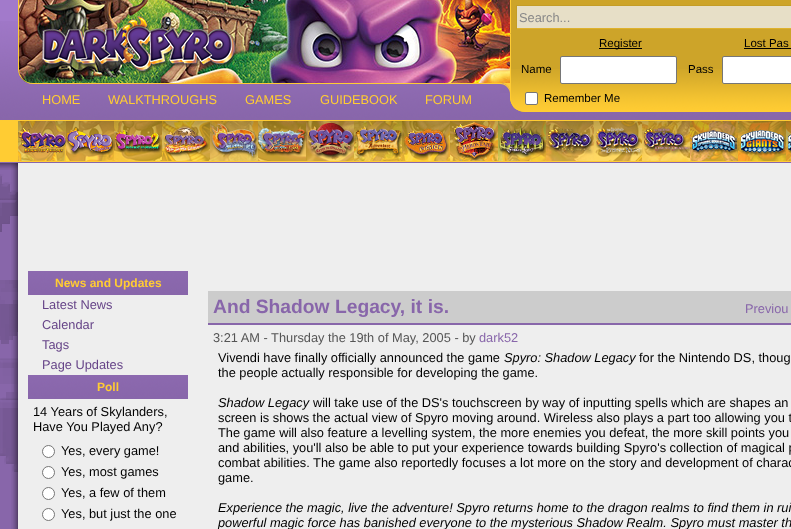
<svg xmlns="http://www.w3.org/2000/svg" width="791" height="529">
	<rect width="100%" height="100%" fill="#8866AA" />
	<image x="0" y="174" width="18" height="298" href="assets/img1.png" />
	<rect x="0" y="0" width="18" height="21" fill="#A27ACB" />
	<image x="0" y="21" width="791" height="99" href="assets/img2.png" />
	<image x="19" y="0" width="491" height="83" href="assets/img3.png" />
	<path d="M18 0H510V84H33C25 84 18 77 18 69ZM19 0H510V83H33C25 83 19 77 19 69Z" fill="#FFCC33" fill-rule="evenodd" />
	<image x="41" y="16" width="197" height="59" href="assets/img4.png" />
	<rect x="511" y="0" width="280" height="33" fill="#CDA429" />
	<rect x="517" y="6" width="274" height="22" fill="#E7DFC7" />
	<rect x="516" y="5" width="275" height="1" fill="#C49D27" />
	<rect x="516" y="28" width="275" height="1" fill="#DFB22D" />
	<rect x="516" y="5" width="1" height="24" fill="#C49D27" />
	<text x="519" y="22" font-family="Liberation Sans" font-size="12.8" fill="#888888">Search...</text>
	<rect x="501" y="84" width="9" height="6" fill="#FFCC33" />
	<image x="500" y="83" width="10" height="10" href="assets/img5.png" />
	<path d="M500 83C506 83 511 88 511 94H500ZM500 84C505.5 84 510 88.5 510 94H500Z" fill="#FFCC33" fill-rule="evenodd" />
	<g font-family="Liberation Sans" font-size="12.8" fill="#FFCC33">
		<text x="42" y="104">HOME</text>
		<text x="108" y="104">WALKTHROUGHS</text>
		<text x="245" y="104">GAMES</text>
		<text x="320" y="104">GUIDEBOOK</text>
		<text x="425" y="104">FORUM</text>
	</g>
	<rect x="510" y="0" width="1" height="34" fill="#FFCC33" />
	<path d="M510 33H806V97C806 105.5 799.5 112 791 112H525C516.5 112 510 105.5 510 97Z" fill="#CDA429" />
	<image x="510" y="69" width="281" height="42" href="assets/img6.png" />
	<path d="M525 112H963C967 112 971 110 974 108L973 107C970 110 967 111 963 111H525C521 111 518 110 515 107L514 108C517 110 521 112 525 112Z" fill="#FFCC33" />
	<path d="M511 34L510 33V97C510 101 512 105 514 108L515 107C512 104 511 101 511 97Z" fill="#FFCC33" />
	<rect x="599" y="48" width="43" height="1" fill="#000000" />
	<g font-family="Liberation Sans" font-size="11.5" fill="#000000">
		<text x="599" y="47">Register</text>
		<text x="744" y="47">Lost Pas</text>
	</g>
	<rect x="744" y="48" width="47" height="1" fill="#000000" />
	<text x="521" y="73" font-family="Liberation Sans" font-size="11.5" fill="#000000">Name</text>
	<rect x="560.5" y="56.5" width="116" height="27" rx="1.5" fill="#FFFFFF" stroke="#767676" />
	<text x="688" y="73" font-family="Liberation Sans" font-size="11.5" fill="#000000">Pass</text>
	<rect x="722.5" y="56.5" width="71" height="27" rx="1.5" fill="#FFFFFF" stroke="#767676" />
	<rect x="525.5" y="92.5" width="12" height="12" rx="1.5" fill="#FFFFFF" stroke="#767676" />
	<text x="544" y="102" font-family="Liberation Sans" font-size="11.5" fill="#000000">Remember Me</text>
	<rect x="0" y="120" width="791" height="42" fill="#FFCC33" />
	<image x="18" y="121" width="48" height="40" href="assets/img7.png" />
	<image x="66" y="121" width="48" height="40" href="assets/img8.png" />
	<image x="114" y="121" width="48" height="40" href="assets/img9.png" />
	<image x="162" y="121" width="48" height="40" href="assets/img10.png" />
	<image x="210" y="121" width="48" height="40" href="assets/img11.png" />
	<image x="258" y="121" width="48" height="40" href="assets/img12.png" />
	<image x="306" y="121" width="48" height="40" href="assets/img13.png" />
	<image x="354" y="121" width="48" height="40" href="assets/img14.png" />
	<image x="402" y="121" width="48" height="40" href="assets/img15.png" />
	<image x="450" y="121" width="48" height="40" href="assets/img16.png" />
	<image x="498" y="121" width="48" height="40" href="assets/img17.png" />
	<image x="546" y="121" width="48" height="40" href="assets/img18.png" />
	<image x="594" y="121" width="48" height="40" href="assets/img19.png" />
	<image x="642" y="121" width="48" height="40" href="assets/img20.png" />
	<image x="690" y="121" width="48" height="40" href="assets/img21.png" />
	<image x="738" y="121" width="48" height="40" href="assets/img22.png" />
	<image x="786" y="121" width="5" height="40" href="assets/img23.png" />
	<image x="0" y="163" width="18" height="7" href="assets/img24.png" />
	<image x="11" y="163" width="780" height="366" href="assets/img25.png" />
	<image x="28" y="271" width="160" height="24" href="assets/img26.png" />
	<text x="55" y="287" font-family="Liberation Sans" font-size="12" font-weight="700" fill="#FFCC33">News and Updates</text>
	<g font-family="Liberation Sans" font-size="12.8" fill="#664488">
		<text x="42" y="309">Latest News</text>
		<text x="42" y="329">Calendar</text>
		<text x="42" y="349">Tags</text>
		<text x="42" y="369">Page Updates</text>
	</g>
	<image x="28" y="375" width="160" height="24" href="assets/img26.png" />
	<text x="97" y="391" font-family="Liberation Sans" font-size="12" font-weight="700" fill="#FFCC33">Poll</text>
	<g font-family="Liberation Sans" font-size="12.8" fill="#000000">
		<text x="33" y="416">14 Years of Skylanders,</text>
		<text x="33" y="431">Have You Played Any?</text>
	</g>
	<circle cx="48.5" cy="451.5" r="6" fill="#FFFFFF" stroke="#767676" />
	<text x="61" y="455" font-family="Liberation Sans" font-size="12.8" fill="#000000">Yes, every game!</text>
	<circle cx="48.5" cy="472.5" r="6" fill="#FFFFFF" stroke="#767676" />
	<text x="61" y="476" font-family="Liberation Sans" font-size="12.8" fill="#000000">Yes, most games</text>
	<circle cx="48.5" cy="493.5" r="6" fill="#FFFFFF" stroke="#767676" />
	<text x="61" y="497" font-family="Liberation Sans" font-size="12.8" fill="#000000">Yes, a few of them</text>
	<circle cx="48.5" cy="514.5" r="6" fill="#FFFFFF" stroke="#767676" />
	<text x="61" y="518" font-family="Liberation Sans" font-size="12.8" fill="#000000">Yes, but just the one</text>
	<rect x="208" y="291" width="583" height="32" fill="#CCCCCC" />
	<rect x="208" y="323" width="583" height="2" fill="#8866AA" />
	<text x="213" y="313" font-family="Liberation Sans" font-size="19.25" font-weight="700" fill="#8866AA">And Shadow Legacy, it is.</text>
	<text x="745" y="313" font-family="Liberation Sans" font-size="12.8" fill="#8866AA">Previou</text>
	<text x="213" y="342" font-family="Liberation Sans" font-size="12.8" fill="#555555">3:21 AM - Thursday the 19th of May, 2005 - by</text>
	<text x="479" y="342" font-family="Liberation Sans" font-size="12.8" fill="#8866AA">dark52</text>
	<text x="218" y="362" font-family="Liberation Sans" font-size="12.8" fill="#000000">Vivendi have finally officially announced the game</text>
	<text x="504" y="362" font-family="Liberation Sans" font-size="12.8" font-style="italic" fill="#000000">Spyro: Shadow Legacy</text>
	<g font-family="Liberation Sans" font-size="12.8" fill="#000000">
		<text x="639" y="362">for the Nintendo DS, thoug</text>
		<text x="218" y="377">the people actually responsible for developing the game.</text>
	</g>
	<text x="218" y="407" font-family="Liberation Sans" font-size="12.8" font-style="italic" fill="#000000">Shadow Legacy</text>
	<g font-family="Liberation Sans" font-size="12.8" fill="#000000">
		<text x="313" y="407">will take use of the DS's touchscreen by way of inputting spells which are shapes an</text>
		<text x="218" y="422">screen is shows the actual view of Spyro moving around. Wireless also plays a part too allowing you t</text>
		<text x="218" y="437">The game will also feature a levelling system, the more enemies you defeat, the more skill points you</text>
		<text x="218" y="452">and abilities, you'll also be able to put your experience towards building Spyro's collection of magical p</text>
		<text x="218" y="467">combat abilities. The game also reportedly focuses a lot more on the story and development of charac</text>
		<text x="218" y="482">game.</text>
	</g>
	<g font-family="Liberation Sans" font-size="12.8" font-style="italic" fill="#000000">
		<text x="218" y="512">Experience the magic, live the adventure! Spyro returns home to the dragon realms to find them in rui</text>
		<text x="218" y="527">powerful magic force has banished everyone to the mysterious Shadow Realm. Spyro must master th</text>
	</g>
</svg>
